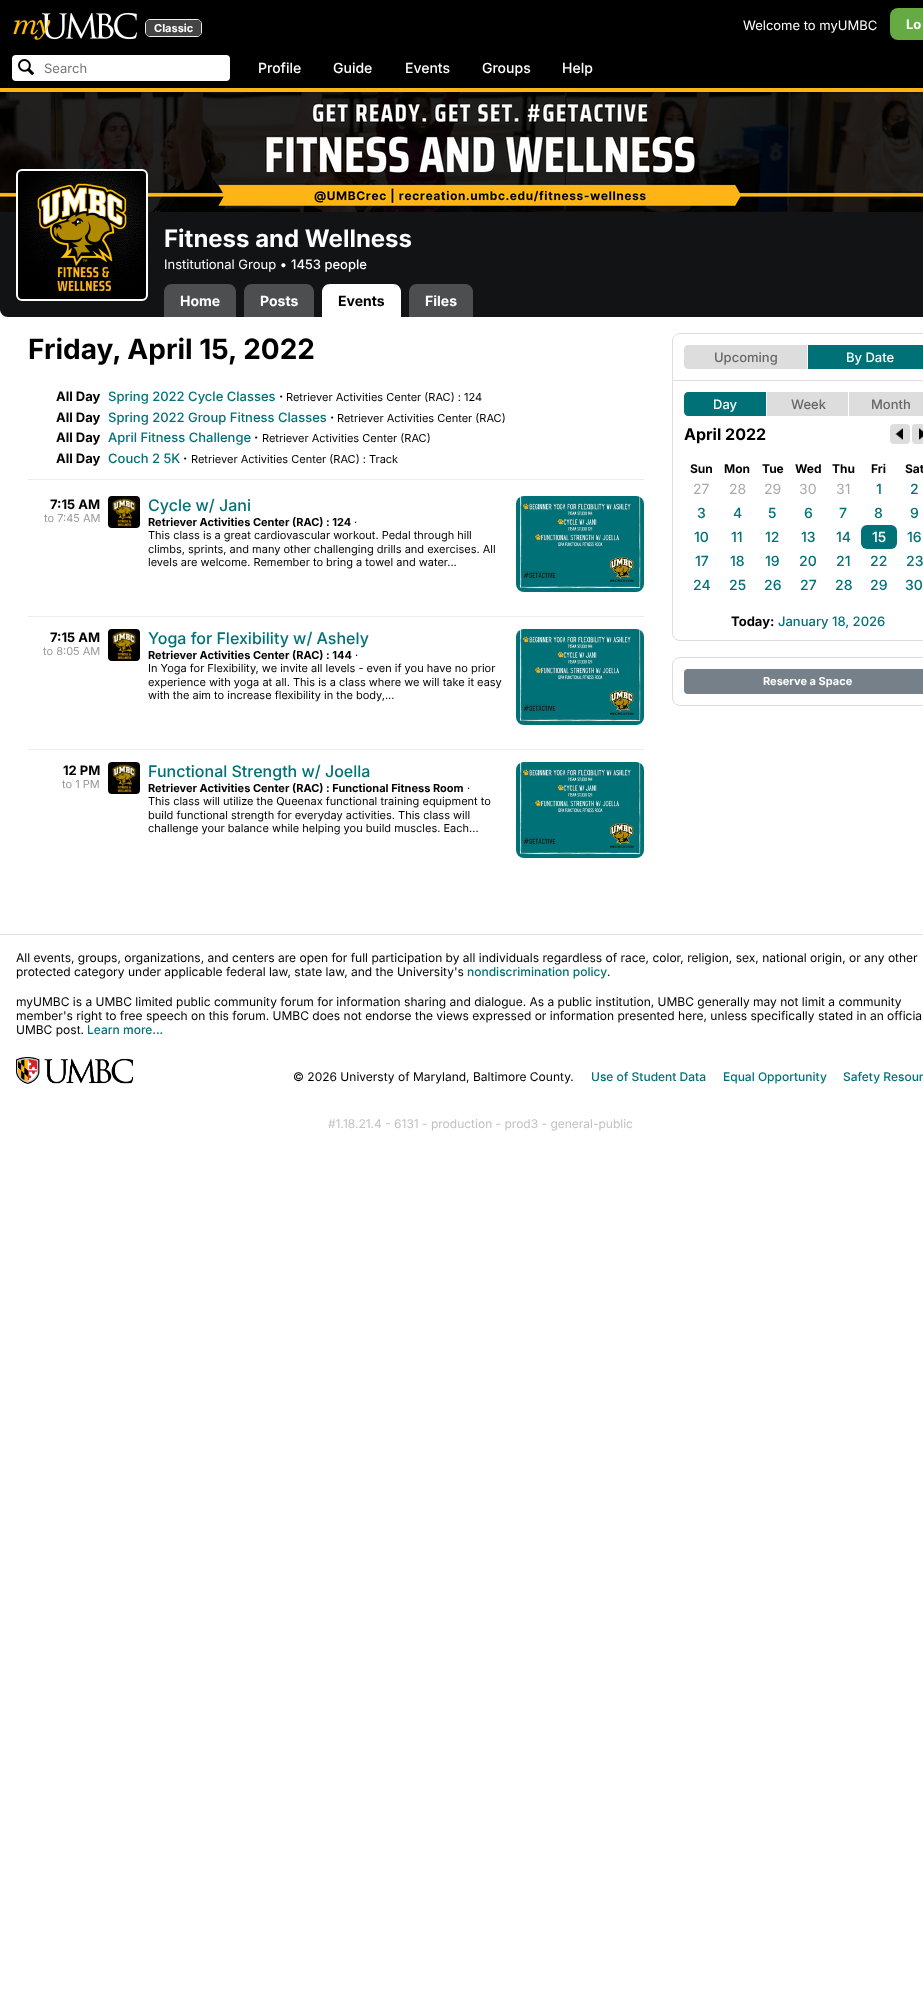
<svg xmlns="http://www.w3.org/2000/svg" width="923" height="2007">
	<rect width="100%" height="100%" fill="#FFFFFF" />
	<image x="0" y="92" width="923" height="120" href="assets/img3.png" />
	<rect x="0" y="1" width="923" height="92" fill="#000000" fill-opacity="0.24" filter="blur(1px)" />
	<rect x="0" y="0" width="923" height="88" fill="#000000" />
	<rect x="0" y="88" width="923" height="4" fill="#FDB515" />
	<image x="13" y="12" width="124" height="28" href="assets/img1.png" />
	<rect x="145.5" y="19.5" width="56" height="17" rx="4.5" fill="none" stroke="#F0F0F0" />
	<rect x="146" y="20" width="55" height="16" rx="4" fill="#444444" />
	<text x="154" y="32" font-family="Inter" font-size="11" font-weight="700" fill="#FFFFFF">Classic</text>
	<text x="743" y="30" font-family="Inter" font-size="13" fill="#FFFFFF">Welcome to myUMBC</text>
	<rect x="890" y="8" width="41" height="32" rx="8" fill="#66AA44" />
	<text x="906" y="29" font-family="Inter" font-size="13" font-weight="700" fill="#FFFFFF">Lo</text>
	<rect x="12" y="55" width="218" height="26" rx="4" fill="#FFFFFF" />
	<image x="18" y="59" width="16" height="16" href="assets/img2.png" />
	<text x="44" y="73" font-family="Inter" font-size="13" fill="#757575">Search</text>
	<g font-family="Inter" font-size="14" font-weight="500" fill="#FFFFFF">
		<text x="258" y="73">Profile</text>
		<text x="333" y="73">Guide</text>
		<text x="405" y="73">Events</text>
		<text x="482" y="73">Groups</text>
		<text x="562" y="73">Help</text>
	</g>
	<rect x="0" y="212" width="923" height="66" fill="#111315" />
	<path d="M0 278H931V309C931 313.5 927.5 317 923 317H8C3.5 317 0 313.5 0 309Z" fill="#111315" />
	<image x="18" y="171" width="128" height="128" href="assets/img4.png" />
	<rect x="17" y="170" width="130" height="130" rx="5" fill="none" stroke="#FFFFFF" stroke-width="2" />
	<text x="164" y="247" font-family="Inter" font-size="24" font-weight="700" fill="#FFFFFF">Fitness and Wellness</text>
	<text x="164" y="269" font-family="Inter" font-size="13" fill="#FFFFFF">Institutional Group •</text>
	<text x="291" y="269" font-family="Inter" font-size="13" font-weight="500" fill="#FFFFFF">1453 people</text>
	<path d="M172 284H228C232.5 284 236 287.5 236 292V317H164V292C164 287.5 167.5 284 172 284Z" fill="#4D4E50" />
	<text x="180" y="306" font-family="Inter" font-size="14" font-weight="700" fill="#FFFFFF">Home</text>
	<path d="M252 284H306C310.5 284 314 287.5 314 292V317H244V292C244 287.5 247.5 284 252 284Z" fill="#4D4E50" />
	<text x="260" y="306" font-family="Inter" font-size="14" font-weight="700" fill="#FFFFFF">Posts</text>
	<path d="M330 284H393C397.5 284 401 287.5 401 292V317H322V292C322 287.5 325.5 284 330 284Z" fill="#FFFFFF" />
	<text x="338" y="306" font-family="Inter" font-size="14" font-weight="700" fill="#000000">Events</text>
	<path d="M417 284H465C469.5 284 473 287.5 473 292V317H409V292C409 287.5 412.5 284 417 284Z" fill="#4D4E50" />
	<text x="425" y="306" font-family="Inter" font-size="14" font-weight="700" fill="#FFFFFF">Files</text>
	<text x="28" y="359" font-family="Inter" font-size="28" font-weight="700" fill="#000000">Friday, April 15, 2022</text>
	<rect x="28" y="479" width="616" height="1" fill="#EEEEEE" />
	<text x="56" y="401" font-family="Inter" font-size="13" font-weight="700" fill="#000000">All Day</text>
	<text x="108" y="401" font-family="Inter" font-size="13" font-weight="500" fill="#007176">Spring 2022 Cycle Classes</text>
	<text x="279" y="401" font-family="Inter" font-size="13" font-weight="700" fill="#000000">·</text>
	<text x="286" y="401" font-family="Inter" font-size="11" fill="#000000">Retriever Activities Center (RAC) : 124</text>
	<text x="56" y="422" font-family="Inter" font-size="13" font-weight="700" fill="#000000">All Day</text>
	<text x="108" y="422" font-family="Inter" font-size="13" font-weight="500" fill="#007176">Spring 2022 Group Fitness Classes</text>
	<text x="330" y="422" font-family="Inter" font-size="13" font-weight="700" fill="#000000">·</text>
	<text x="337" y="422" font-family="Inter" font-size="11" fill="#000000">Retriever Activities Center (RAC)</text>
	<text x="56" y="442" font-family="Inter" font-size="13" font-weight="700" fill="#000000">All Day</text>
	<text x="108" y="442" font-family="Inter" font-size="13" font-weight="500" fill="#007176">April Fitness Challenge</text>
	<text x="254" y="442" font-family="Inter" font-size="13" font-weight="700" fill="#000000">·</text>
	<text x="262" y="442" font-family="Inter" font-size="11" fill="#000000">Retriever Activities Center (RAC)</text>
	<text x="56" y="463" font-family="Inter" font-size="13" font-weight="700" fill="#000000">All Day</text>
	<text x="108" y="463" font-family="Inter" font-size="13" font-weight="500" fill="#007176">Couch 2 5K</text>
	<text x="183" y="463" font-family="Inter" font-size="13" font-weight="700" fill="#000000">·</text>
	<text x="191" y="463" font-family="Inter" font-size="11" fill="#000000">Retriever Activities Center (RAC) : Track</text>
	<text x="50" y="509" font-family="Inter" font-size="13" font-weight="700" fill="#000000">7:15 AM</text>
	<text x="44" y="522" font-family="Inter" font-size="11" fill="#999999">to 7:45 AM</text>
	<image x="108" y="496" width="32" height="32" href="assets/img5.png" />
	<text x="148" y="511" font-family="Inter" font-size="16" font-weight="500" fill="#007176">Cycle w/ Jani</text>
	<image x="516" y="496" width="128" height="96" href="assets/img6.png" />
	<text x="148" y="526" font-family="Inter" font-size="11" font-weight="700" fill="#000000">Retriever Activities Center (RAC) : 124</text>
	<g font-family="Inter" font-size="11" fill="#000000">
		<text x="354" y="526">·</text>
		<text x="148" y="539">This class is a great cardiovascular workout. Pedal through hill</text>
		<text x="148" y="553">climbs, sprints, and many other challenging drills and exercises. All</text>
		<text x="148" y="566">levels are welcome. Remember to bring a towel and water...</text>
	</g>
	<rect x="28" y="616" width="616" height="1" fill="#EEEEEE" />
	<text x="50" y="642" font-family="Inter" font-size="13" font-weight="700" fill="#000000">7:15 AM</text>
	<text x="43" y="655" font-family="Inter" font-size="11" fill="#999999">to 8:05 AM</text>
	<image x="108" y="629" width="32" height="32" href="assets/img5.png" />
	<text x="148" y="644" font-family="Inter" font-size="16" font-weight="500" fill="#007176">Yoga for Flexibility w/ Ashely</text>
	<image x="516" y="629" width="128" height="96" href="assets/img7.png" />
	<text x="148" y="659" font-family="Inter" font-size="11" font-weight="700" fill="#000000">Retriever Activities Center (RAC) : 144</text>
	<g font-family="Inter" font-size="11" fill="#000000">
		<text x="355" y="659">·</text>
		<text x="148" y="672">In Yoga for Flexibility, we invite all levels - even if you have no prior</text>
		<text x="148" y="686">experience with yoga at all. This is a class where we will take it easy</text>
		<text x="148" y="699">with the aim to increase flexibility in the body,...</text>
	</g>
	<rect x="28" y="749" width="616" height="1" fill="#EEEEEE" />
	<text x="63" y="775" font-family="Inter" font-size="13" font-weight="700" fill="#000000">12 PM</text>
	<text x="62" y="788" font-family="Inter" font-size="11" fill="#999999">to 1 PM</text>
	<image x="108" y="762" width="32" height="32" href="assets/img8.png" />
	<text x="148" y="777" font-family="Inter" font-size="16" font-weight="500" fill="#007176">Functional Strength w/ Joella</text>
	<image x="516" y="762" width="128" height="96" href="assets/img9.png" />
	<text x="148" y="792" font-family="Inter" font-size="11" font-weight="700" fill="#000000">Retriever Activities Center (RAC) : Functional Fitness Room</text>
	<g font-family="Inter" font-size="11" fill="#000000">
		<text x="467" y="792">·</text>
		<text x="148" y="805">This class will utilize the Queenax functional training equipment to</text>
		<text x="148" y="819">build functional strength for everyday activities. This class will</text>
		<text x="148" y="832">challenge your balance while helping you build muscles. Each...</text>
	</g>
	<path d="M680 333H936C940 333 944 337 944 341V380H672V341C672 337 676 333 680 333ZM680 334H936C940 334 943 337 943 341V380H673V341C673 337 676 334 680 334Z" fill="#DDDDDD" fill-rule="evenodd" />
	<path d="M688 345H808V369H688C686 369 684 367 684 365V349C684 347 686 345 688 345Z" fill="#DDDDDD" />
	<text x="714" y="362" font-family="Inter" font-size="13" font-weight="500" fill="#666666">Upcoming</text>
	<rect x="807" y="345" width="1" height="24" fill="#FFFFFF" />
	<rect x="808" y="345" width="115" height="24" fill="#007176" />
	<text x="846" y="362" font-family="Inter" font-size="13" font-weight="500" fill="#FFFFFF">By Date</text>
	<path d="M672.5 380.5H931.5V633C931.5 637 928 640.5 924 640.5H680C676 640.5 672.5 637 672.5 633Z" fill="none" stroke="#DDDDDD" />
	<path d="M688 392H767V416H688C686 416 684 414 684 412V396C684 394 686 392 688 392Z" fill="#007176" />
	<text x="713" y="409" font-family="Inter" font-size="13" font-weight="500" fill="#FFFFFF">Day</text>
	<rect x="766" y="392" width="1" height="24" fill="#FFFFFF" />
	<rect x="767" y="392" width="81" height="24" fill="#DDDDDD" />
	<text x="791" y="409" font-family="Inter" font-size="13" font-weight="500" fill="#666666">Week</text>
	<rect x="849" y="392" width="74" height="24" fill="#DDDDDD" />
	<text x="871" y="409" font-family="Inter" font-size="13" font-weight="500" fill="#666666">Month</text>
	<text x="684" y="440" font-family="Inter" font-size="16" font-weight="700" fill="#000000">April 2022</text>
	<rect x="890" y="424" width="20" height="20" rx="4" fill="#DDDDDD" />
	<image x="895" y="428" width="8" height="12" href="assets/img10.png" />
	<rect x="912" y="424" width="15" height="20" rx="4" fill="#DDDDDD" />
	<image x="919" y="428" width="4" height="12" href="assets/img11.png" />
	<g font-family="Inter" font-size="12" font-weight="700" fill="#000000">
		<text x="690" y="473">Sun</text>
		<text x="724" y="473">Mon</text>
		<text x="762" y="473">Tue</text>
		<text x="795" y="473">Wed</text>
		<text x="832" y="473">Thu</text>
		<text x="871" y="473">Fri</text>
		<text x="905" y="473">Sat</text>
	</g>
	<g font-family="Inter" font-size="14" fill="#AAAAAA">
		<text x="693" y="494">27</text>
		<text x="729" y="494">28</text>
		<text x="764" y="494">29</text>
		<text x="799" y="494">30</text>
		<text x="836" y="494">31</text>
	</g>
	<g font-family="Inter" font-size="14" font-weight="500" fill="#007176">
		<text x="876" y="494">1</text>
		<text x="910" y="494">2</text>
		<text x="697" y="518">3</text>
		<text x="733" y="518">4</text>
		<text x="768" y="518">5</text>
		<text x="804" y="518">6</text>
		<text x="839" y="518">7</text>
		<text x="874" y="518">8</text>
		<text x="910" y="518">9</text>
		<text x="694" y="542">10</text>
		<text x="731" y="542">11</text>
		<text x="765" y="542">12</text>
		<text x="801" y="542">13</text>
		<text x="836" y="542">14</text>
	</g>
	<rect x="861" y="525" width="36" height="24" rx="6" fill="#007176" />
	<text x="872" y="542" font-family="Inter" font-size="14" font-weight="500" fill="#FFFFFF">15</text>
	<g font-family="Inter" font-size="14" font-weight="500" fill="#007176">
		<text x="907" y="542">16</text>
		<text x="695" y="566">17</text>
		<text x="730" y="566">18</text>
		<text x="765" y="566">19</text>
		<text x="799" y="566">20</text>
		<text x="836" y="566">21</text>
		<text x="870" y="566">22</text>
		<text x="906" y="566">23</text>
		<text x="693" y="590">24</text>
		<text x="729" y="590">25</text>
		<text x="764" y="590">26</text>
		<text x="800" y="590">27</text>
		<text x="835" y="590">28</text>
		<text x="870" y="590">29</text>
		<text x="905" y="590">30</text>
	</g>
	<text x="731" y="626" font-family="Inter" font-size="13" font-weight="700" fill="#000000">Today:</text>
	<text x="778" y="626" font-family="Inter" font-size="13" font-weight="500" fill="#007176">January 18, 2026</text>
	<rect x="672.5" y="657.5" width="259" height="48" rx="7.5" fill="none" stroke="#DDDDDD" />
	<rect x="684" y="669" width="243" height="25" rx="4" fill="#768089" />
	<text x="763" y="685" font-family="Inter" font-size="11" font-weight="700" fill="#FFFFFF">Reserve a Space</text>
	<rect x="0" y="934" width="923" height="1" fill="#E0E0E0" />
	<g font-family="Inter" font-size="12" fill="#000000">
		<text x="16" y="962">All events, groups, organizations, and centers are open for full participation by all individuals regardless of race, color, religion, sex, national origin, or any other</text>
		<text x="16" y="976">protected category under applicable federal law, state law, and the University's</text>
	</g>
	<text x="467" y="976" font-family="Inter" font-size="12" font-weight="500" fill="#007176">nondiscrimination policy</text>
	<g font-family="Inter" font-size="12" fill="#000000">
		<text x="607" y="976">.</text>
		<text x="16" y="1006">myUMBC is a UMBC limited public community forum for information sharing and dialogue. As a public institution, UMBC generally may not limit a community</text>
		<text x="16" y="1020">member's right to free speech on this forum. UMBC does not endorse the views expressed or information presented here, unless specifically stated in an officia</text>
		<text x="16" y="1034">UMBC post.</text>
	</g>
	<text x="87" y="1034" font-family="Inter" font-size="12" font-weight="500" fill="#007176">Learn more...</text>
	<image x="16" y="1057" width="118" height="27" href="assets/img12.png" />
	<text x="293" y="1081" font-family="Inter" font-size="12" fill="#000000">© 2026 Universty of Maryland, Baltimore County.</text>
	<g font-family="Inter" font-size="12" font-weight="500" fill="#007176">
		<text x="591" y="1081">Use of Student Data</text>
		<text x="723" y="1081">Equal Opportunity</text>
		<text x="843" y="1081">Safety Resour</text>
	</g>
	<text x="328" y="1128" font-family="Inter" font-size="12" fill="#C2C2C2">#1.18.21.4 - 6131 - production - prod3 - general-public</text>
</svg>
